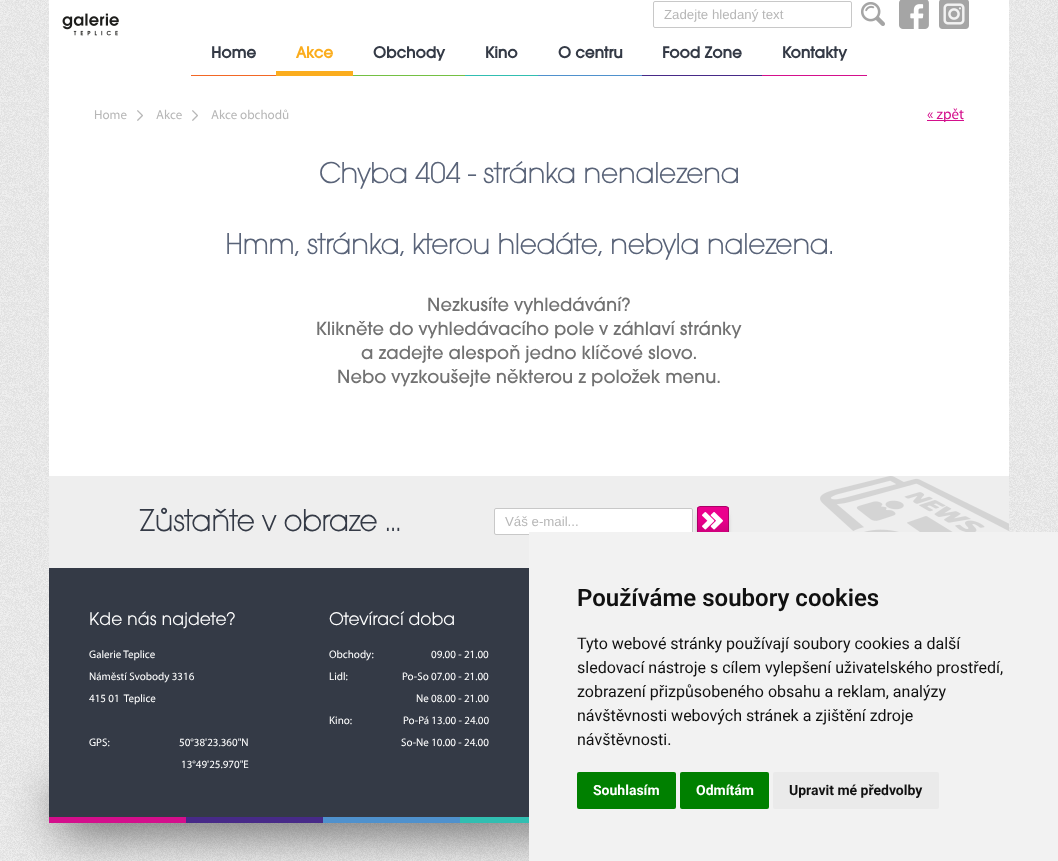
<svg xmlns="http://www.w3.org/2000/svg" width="1058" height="861">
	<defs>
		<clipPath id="clip1"><rect x="697" y="506" width="32" height="31" rx="3" /></clipPath>
		<linearGradient id="g1" gradientUnits="userSpaceOnUse" x1="713" y1="507" x2="713" y2="536"><stop offset="0.4" stop-color="#EB008D" /><stop offset="1" stop-color="#C70077" /></linearGradient>
	</defs>
	<rect width="100%" height="100%" fill="#FFFFFF" />
	<image x="0" y="0" width="1058" height="861" href="assets/img1.png" />
	<rect x="49" y="0" width="960" height="476" fill="#FFFFFF" />
	<image x="62" y="13" width="57" height="23" href="assets/img2.png" />
	<rect x="653.5" y="1.5" width="198" height="26" rx="1.5" fill="none" stroke="#C8C8C8" />
	<text x="664" y="19" font-family="Liberation Sans" font-size="13.25" fill="#B7B7B7">Zadejte hledaný text</text>
	<image x="861" y="2" width="24" height="24" href="assets/img3.png" />
	<image x="899" y="0" width="30" height="29" href="assets/img4.png" />
	<image x="939" y="0" width="30" height="29" href="assets/img5.png" />
	<rect x="191" y="75" width="85" height="1" fill="#F26725" />
	<text x="211" y="58" font-family="'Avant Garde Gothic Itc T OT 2'" font-size="17" font-weight="700" fill="#343A46">Home</text>
	<rect x="276" y="71" width="77" height="5" fill="#FBAD1E" />
	<text x="296" y="58" font-family="'Avant Garde Gothic Itc T OT 2'" font-size="17" font-weight="700" fill="#FBAD1E">Akce</text>
	<rect x="353" y="75" width="112" height="1" fill="#74C043" />
	<text x="373" y="58" font-family="'Avant Garde Gothic Itc T OT 2'" font-size="17" font-weight="700" fill="#343A46">Obchody</text>
	<rect x="465" y="75" width="73" height="1" fill="#31BEB1" />
	<text x="485" y="58" font-family="'Avant Garde Gothic Itc T OT 2'" font-size="17" font-weight="700" fill="#343A46">Kino</text>
	<rect x="538" y="75" width="104" height="1" fill="#4F91CD" />
	<text x="558" y="58" font-family="'Avant Garde Gothic Itc T OT 2'" font-size="17" font-weight="700" fill="#343A46">O centru</text>
	<rect x="642" y="75" width="120" height="1" fill="#472A88" />
	<text x="662" y="58" font-family="'Avant Garde Gothic Itc T OT 2'" font-size="17" font-weight="700" fill="#343A46">Food Zone</text>
	<rect x="762" y="75" width="105" height="1" fill="#D40F8C" />
	<text x="782" y="58" font-family="'Avant Garde Gothic Itc T OT 2'" font-size="17" font-weight="700" fill="#343A46">Kontakty</text>
	<image x="137" y="110" width="6" height="11" href="assets/img6.png" />
	<text x="94" y="119" font-family="Myriad" font-size="13" fill="#B7B7B7">Home</text>
	<image x="192" y="110" width="6" height="11" href="assets/img6.png" />
	<g font-family="Myriad" font-size="13" fill="#B7B7B7">
		<text x="156" y="119">Akce</text>
		<text x="211" y="119">Akce obchodů</text>
	</g>
	<rect x="927" y="120" width="37" height="1" fill="#D40F8C" />
	<text x="927" y="119" font-family="Myriad" font-size="15" fill="#D40F8C">« zpět</text>
	<g font-family="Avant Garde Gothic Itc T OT" font-size="30" font-weight="700" fill="#596378">
		<text x="319" y="183">Chyba 404 - stránka nenalezena</text>
		<text x="225" y="254">Hmm, stránka, kterou hledáte, nebyla nalezena.</text>
	</g>
	<g font-family="Avant Garde Gothic Itc T OT" font-size="20" font-weight="500" fill="#727272">
		<text x="427" y="311">Nezkusíte vyhledávání?</text>
		<text x="316" y="335">Klikněte do vyhledávacího pole v záhlaví stránky</text>
		<text x="361" y="359">a zadejte alespoň jedno klíčové slovo.</text>
		<text x="337" y="383">Nebo vyzkoušejte některou z položek menu.</text>
	</g>
	<rect x="49" y="476" width="960" height="92" fill="#EEEEEE" />
	<image x="820" y="476" width="189" height="56" href="assets/img7.png" />
	<text x="139" y="531" font-family="Avant Garde Gothic Itc T OT" font-size="31.5" font-weight="700" fill="#343A46">Zůstaňte v obraze ...</text>
	<rect x="494.5" y="508.5" width="198" height="26" rx="1.5" fill="#FFFFFF" stroke="#C8C8C8" />
	<text x="505" y="526" font-family="Liberation Sans" font-size="13.25" fill="#B7B7B7">Váš e-mail...</text>
	<rect x="701" y="515" width="24" height="23" fill="#333333" filter="blur(3px)" />
	<g clip-path="url(#clip1)">
		<rect x="697" y="507" width="32" height="25" fill="url(#g1)" />
	</g>
	<image x="702" y="512" width="21" height="18" href="assets/img8.png" />
	<rect x="697.5" y="506.5" width="31" height="30" rx="2.5" fill="none" stroke="#AB0067" />
	<rect x="59" y="792" width="460" height="34" fill="#333333" filter="blur(25px)" />
	<rect x="519" y="792" width="460" height="34" fill="#333333" filter="blur(25px)" />
	<rect x="49" y="568" width="480" height="249" fill="#343A46" />
	<text x="89" y="625" font-family="Avant Garde Gothic Itc T OT" font-size="19" fill="#FFFFFF">Kde nás najdete?</text>
	<g font-family="Myriad" font-size="11" fill="#FFFFFF">
		<text x="89" y="658">Galerie Teplice</text>
		<text x="89" y="680">Náměstí Svobody 3316</text>
		<text x="89" y="702" xml:space="preserve">415 01  Teplice</text>
		<text x="89" y="746">GPS:</text>
		<text x="179" y="746">50°38'23.360"N</text>
		<text x="181" y="768">13°49'25.970"E</text>
	</g>
	<text x="329" y="625" font-family="Avant Garde Gothic Itc T OT" font-size="19" fill="#FFFFFF">Otevírací doba</text>
	<g font-family="Myriad" font-size="11" fill="#FFFFFF">
		<text x="329" y="658">Obchody:</text>
		<text x="431" y="658">09.00 - 21.00</text>
		<text x="329" y="680">Lidl:</text>
		<text x="402" y="680">Po-So 07.00 - 21.00</text>
		<text x="416" y="702">Ne 08.00 - 21.00</text>
		<text x="329" y="724">Kino:</text>
		<text x="403" y="724">Po-Pá 13.00 - 24.00</text>
		<text x="401" y="746">So-Ne 10.00 - 24.00</text>
	</g>
	<rect x="49" y="817" width="137" height="6" fill="#D40F8C" />
	<rect x="186" y="817" width="137" height="6" fill="#472A88" />
	<rect x="323" y="817" width="137" height="6" fill="#4F91CD" />
	<rect x="460" y="817" width="69" height="6" fill="#31BEB1" />
	<rect x="529" y="532" width="529" height="329" fill="#F2F2F2" />
	<text x="577" y="606" font-family="Roboto" font-size="24" font-weight="600" fill="#111111">Používáme soubory cookies</text>
	<g font-family="Roboto" font-size="16" fill="#111111">
		<text x="577" y="649">Tyto webové stránky používají soubory cookies a další</text>
		<text x="577" y="673">sledovací nástroje s cílem vylepšení uživatelského prostředí,</text>
		<text x="577" y="697">zobrazení přizpůsobeného obsahu a reklam, analýzy</text>
		<text x="577" y="721">návštěvnosti webových stránek a zjištění zdroje</text>
		<text x="577" y="745">návštěvnosti.</text>
	</g>
	<rect x="577" y="772" width="99" height="37" rx="2" fill="#008000" />
	<text x="593" y="795" font-family="Roboto" font-size="14" font-weight="700" fill="#FFFFFF">Souhlasím</text>
	<rect x="680" y="772" width="89" height="37" rx="2" fill="#008000" />
	<text x="696" y="795" font-family="Roboto" font-size="14" font-weight="700" fill="#FFFFFF">Odmítám</text>
	<rect x="773" y="772" width="166" height="37" rx="2" fill="#EAEAEA" />
	<text x="789" y="795" font-family="Roboto" font-size="14" font-weight="700" fill="#111111">Upravit mé předvolby</text>
</svg>
